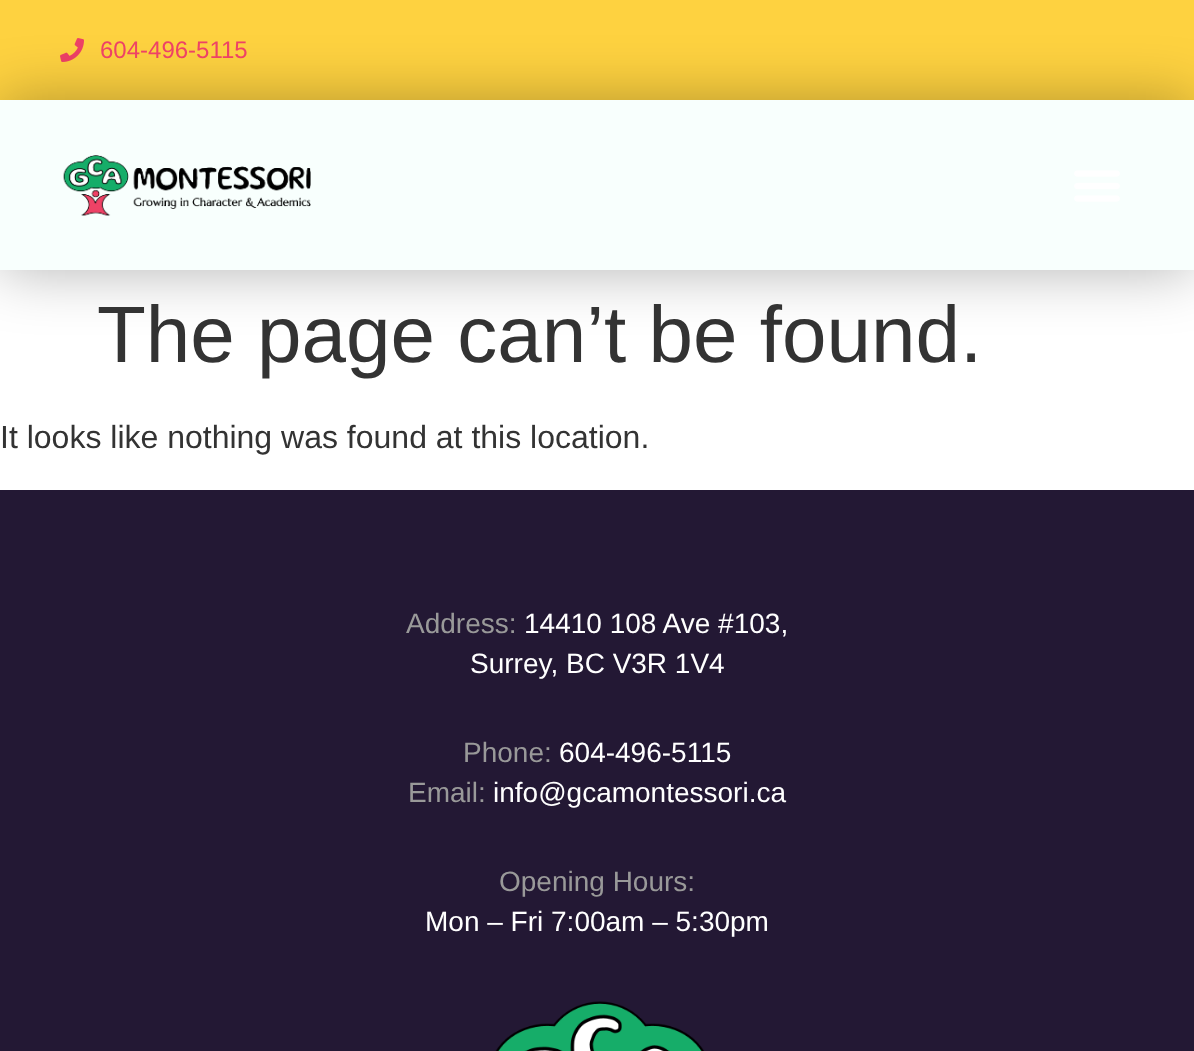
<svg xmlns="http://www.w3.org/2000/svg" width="1194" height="1051">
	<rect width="100%" height="100%" fill="#FFFFFF" />
	<rect x="0" y="0" width="1194" height="100" fill="#FED240" />
	<image x="60" y="38" width="24" height="24" href="assets/img3.png" />
	<rect x="0" y="100" width="1194" height="170" fill="#000000" fill-opacity="0.3" filter="blur(30px)" />
	<rect x="0" y="100" width="1194" height="170" fill="#F8FFFD" />
	<image x="63" y="155" width="248" height="61" href="assets/img1.png" />
	<image x="1074" y="170" width="46" height="32" href="assets/img2.png" />
	<text x="100" y="58" font-family="Liberation Sans" font-size="24" fill="#EE4266">604-496-5115</text>
	<text x="97" y="362" font-family="Liberation Sans" font-size="80" fill="#333333">The page can’t be found.</text>
	<text x="0" y="448" font-family="Liberation Sans" font-size="32" fill="#333333">It looks like nothing was found at this location.</text>
	<rect x="0" y="490" width="1194" height="561" fill="#231834" />
	<text x="406" y="633" font-family="Liberation Sans" font-size="28" fill="#999999">Address:</text>
	<g font-family="Liberation Sans" font-size="28" fill="#FFFFFF">
		<text x="524" y="633">14410 108 Ave #103,</text>
		<text x="470" y="673">Surrey, BC V3R 1V4</text>
	</g>
	<text x="463" y="762" font-family="Liberation Sans" font-size="28" fill="#999999">Phone:</text>
	<text x="559" y="762" font-family="Liberation Sans" font-size="28" fill="#FFFFFF">604-496-5115</text>
	<text x="408" y="802" font-family="Liberation Sans" font-size="28" fill="#999999">Email:</text>
	<text x="493" y="802" font-family="Liberation Sans" font-size="28" fill="#FFFFFF">info@gcamontessori.ca</text>
	<text x="499" y="891" font-family="Liberation Sans" font-size="28" fill="#999999">Opening Hours:</text>
	<text x="425" y="931" font-family="Liberation Sans" font-size="28" fill="#FFFFFF">Mon – Fri 7:00am – 5:30pm</text>
	<image x="495" y="1001" width="209" height="50" href="assets/img4.png" />
</svg>
